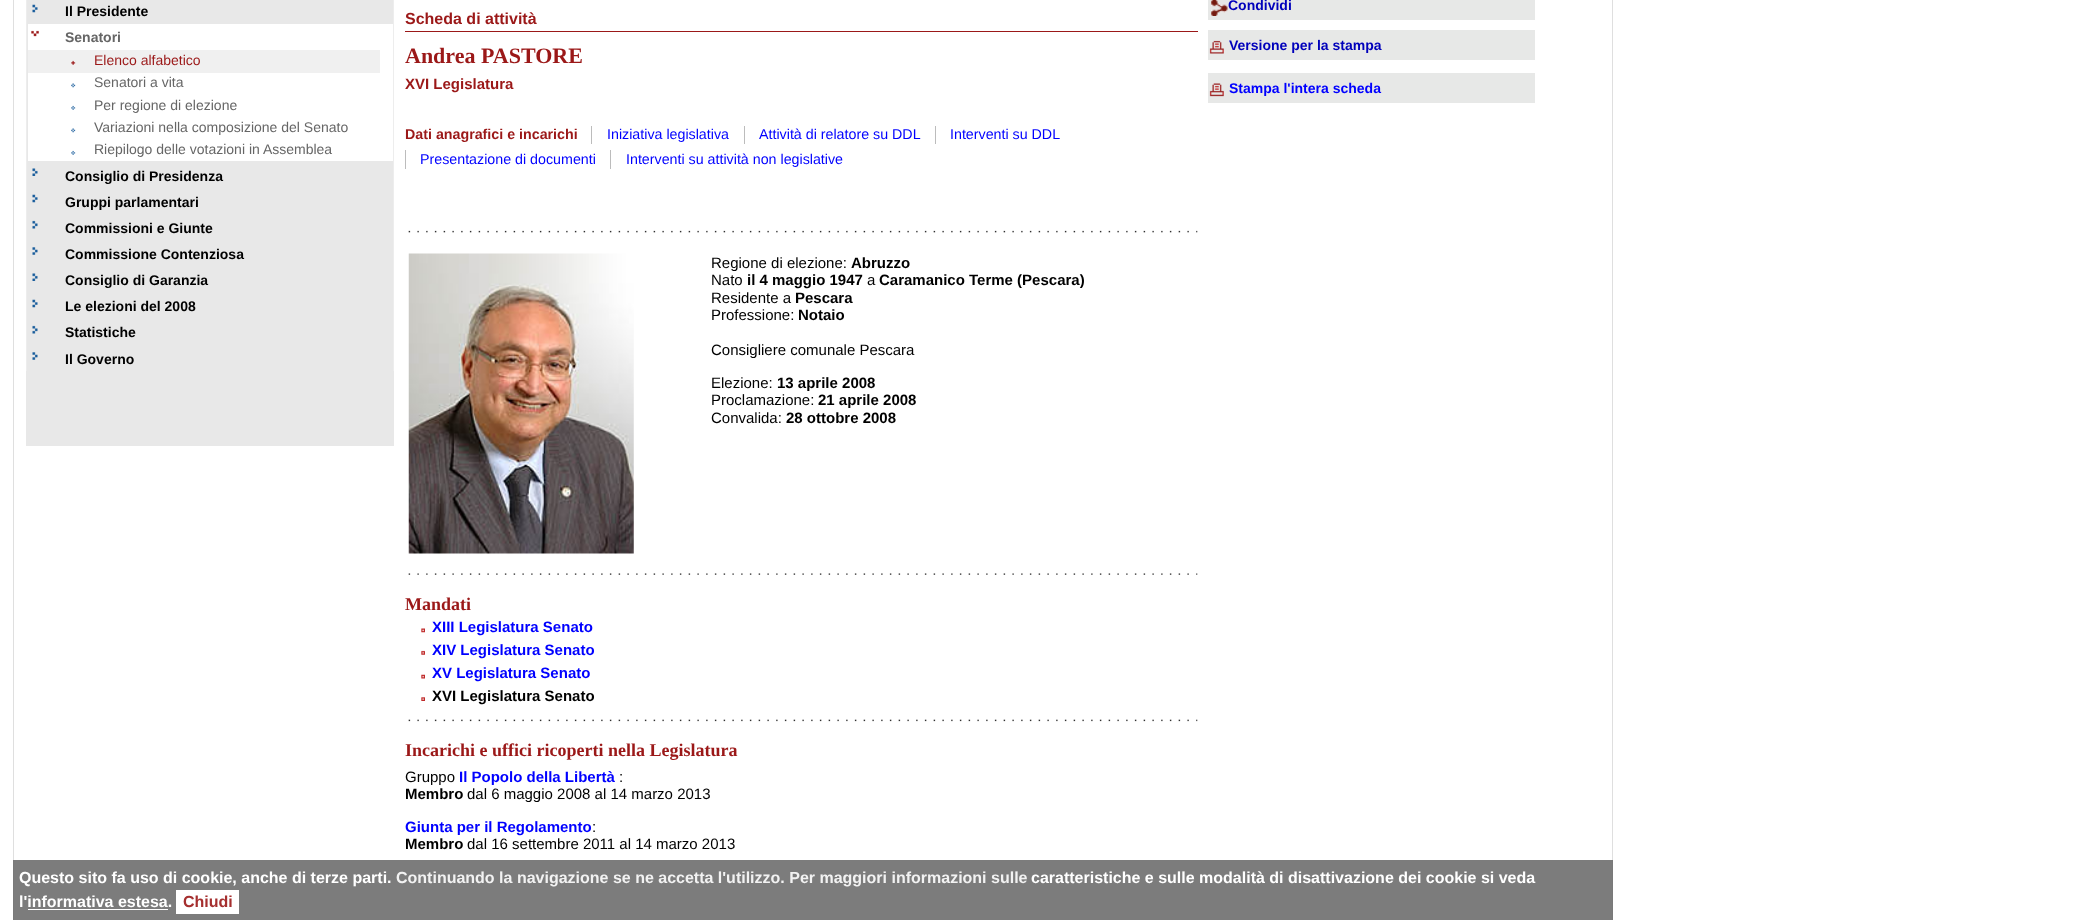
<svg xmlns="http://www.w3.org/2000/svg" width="2073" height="920">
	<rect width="100%" height="100%" fill="#FFFFFF" />
	<rect x="13.5" y="-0.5" width="1599" height="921" fill="none" stroke="#DFDFDF" />
	<rect x="26" y="0" width="368" height="446" fill="#E8E8E8" />
	<rect x="393" y="0" width="1" height="371" fill="#EDEDED" />
	<rect x="26" y="0" width="1" height="371" fill="#EDEDED" />
	<image x="32" y="4" width="6" height="9" href="assets/img1.png" />
	<text x="65" y="16" font-family="Liberation Sans" font-size="14" font-weight="700" fill="#000000">Il Presidente</text>
	<rect x="28" y="24" width="365" height="137" fill="#FFFFFF" />
	<image x="31" y="30" width="8" height="7" href="assets/img2.png" />
	<text x="65" y="42" font-family="Liberation Sans" font-size="14" font-weight="700" fill="#666666">Senatori</text>
	<rect x="28" y="50" width="352" height="23" fill="#F0F0F0" />
	<image x="71" y="60" width="5" height="5" href="assets/img3.png" />
	<text x="94" y="65" font-family="Liberation Sans" font-size="14" fill="#9B1818">Elenco alfabetico</text>
	<image x="71" y="83" width="5" height="5" href="assets/img4.png" />
	<text x="94" y="87" font-family="Liberation Sans" font-size="14" fill="#666666">Senatori a vita</text>
	<image x="71" y="105" width="5" height="5" href="assets/img5.png" />
	<text x="94" y="110" font-family="Liberation Sans" font-size="14" fill="#666666">Per regione di elezione</text>
	<image x="71" y="128" width="5" height="5" href="assets/img4.png" />
	<text x="94" y="132" font-family="Liberation Sans" font-size="14" fill="#666666">Variazioni nella composizione del Senato</text>
	<image x="71" y="150" width="5" height="5" href="assets/img5.png" />
	<text x="94" y="154" font-family="Liberation Sans" font-size="14" fill="#666666">Riepilogo delle votazioni in Assemblea</text>
	<image x="32" y="168" width="6" height="8" href="assets/img6.png" />
	<text x="65" y="181" font-family="Liberation Sans" font-size="14" font-weight="700" fill="#000000">Consiglio di Presidenza</text>
	<image x="32" y="194" width="6" height="9" href="assets/img1.png" />
	<text x="65" y="207" font-family="Liberation Sans" font-size="14" font-weight="700" fill="#000000">Gruppi parlamentari</text>
	<image x="32" y="220" width="6" height="9" href="assets/img7.png" />
	<text x="65" y="233" font-family="Liberation Sans" font-size="14" font-weight="700" fill="#000000">Commissioni e Giunte</text>
	<image x="32" y="247" width="6" height="8" href="assets/img8.png" />
	<text x="65" y="259" font-family="Liberation Sans" font-size="14" font-weight="700" fill="#000000">Commissione Contenziosa</text>
	<image x="32" y="273" width="6" height="8" href="assets/img9.png" />
	<text x="65" y="285" font-family="Liberation Sans" font-size="14" font-weight="700" fill="#000000">Consiglio di Garanzia</text>
	<image x="32" y="299" width="6" height="9" href="assets/img1.png" />
	<text x="65" y="311" font-family="Liberation Sans" font-size="14" font-weight="700" fill="#000000">Le elezioni del 2008</text>
	<image x="32" y="325" width="6" height="9" href="assets/img7.png" />
	<text x="65" y="337" font-family="Liberation Sans" font-size="14" font-weight="700" fill="#000000">Statistiche</text>
	<image x="32" y="352" width="6" height="8" href="assets/img8.png" />
	<text x="65" y="364" font-family="Liberation Sans" font-size="14" font-weight="700" fill="#000000">Il Governo</text>
	<rect x="405" y="31" width="793" height="1" fill="#9B1818" />
	<text x="405" y="24" font-family="Liberation Sans" font-size="16" font-weight="700" fill="#9B1818">Scheda di attività</text>
	<text x="405" y="63" font-family="Liberation Serif" font-size="22" font-weight="700" fill="#9B1818">Andrea PASTORE</text>
	<text x="405" y="89" font-family="Liberation Sans" font-size="15" font-weight="700" fill="#9B1818">XVI Legislatura</text>
	<text x="405" y="139" font-family="Liberation Sans" font-size="14.25" font-weight="700" fill="#9B1818">Dati anagrafici e incarichi</text>
	<rect x="591" y="126" width="1" height="18" fill="#BCBCBC" />
	<text x="607" y="139" font-family="Liberation Sans" font-size="14.25" fill="#0000FF">Iniziativa legislativa</text>
	<rect x="744" y="126" width="1" height="18" fill="#BCBCBC" />
	<text x="759" y="139" font-family="Liberation Sans" font-size="14.25" fill="#0000FF">Attività di relatore su DDL</text>
	<rect x="935" y="126" width="1" height="18" fill="#BCBCBC" />
	<text x="950" y="139" font-family="Liberation Sans" font-size="14.25" fill="#0000FF">Interventi su DDL</text>
	<rect x="405" y="150" width="1" height="19" fill="#BCBCBC" />
	<text x="420" y="164" font-family="Liberation Sans" font-size="14.25" fill="#0000FF">Presentazione di documenti</text>
	<rect x="610" y="150" width="1" height="19" fill="#BCBCBC" />
	<text x="626" y="164" font-family="Liberation Sans" font-size="14.25" fill="#0000FF">Interventi su attività non legislative</text>
	<image x="408" y="230" width="790" height="3" href="assets/img10.png" />
	<image x="408" y="253" width="226" height="301" href="assets/img11.png" />
	<text x="711" y="268" font-family="Liberation Sans" font-size="15" fill="#000000">Regione di elezione:</text>
	<text x="851" y="268" font-family="Liberation Sans" font-size="15" font-weight="700" fill="#000000">Abruzzo</text>
	<text x="711" y="285" font-family="Liberation Sans" font-size="15" fill="#000000">Nato</text>
	<text x="747" y="285" font-family="Liberation Sans" font-size="15" font-weight="700" fill="#000000">il 4 maggio 1947</text>
	<text x="867" y="285" font-family="Liberation Sans" font-size="15" fill="#000000">a</text>
	<text x="879" y="285" font-family="Liberation Sans" font-size="15" font-weight="700" fill="#000000">Caramanico Terme (Pescara)</text>
	<text x="711" y="303" font-family="Liberation Sans" font-size="15" fill="#000000">Residente a</text>
	<text x="795" y="303" font-family="Liberation Sans" font-size="15" font-weight="700" fill="#000000">Pescara</text>
	<text x="711" y="320" font-family="Liberation Sans" font-size="15" fill="#000000">Professione:</text>
	<text x="798" y="320" font-family="Liberation Sans" font-size="15" font-weight="700" fill="#000000">Notaio</text>
	<g font-family="Liberation Sans" font-size="15" fill="#000000">
		<text x="711" y="355">Consigliere comunale Pescara</text>
		<text x="711" y="388">Elezione:</text>
	</g>
	<text x="777" y="388" font-family="Liberation Sans" font-size="15" font-weight="700" fill="#000000">13 aprile 2008</text>
	<text x="711" y="405" font-family="Liberation Sans" font-size="15" fill="#000000">Proclamazione:</text>
	<text x="818" y="405" font-family="Liberation Sans" font-size="15" font-weight="700" fill="#000000">21 aprile 2008</text>
	<text x="711" y="423" font-family="Liberation Sans" font-size="15" fill="#000000">Convalida:</text>
	<text x="786" y="423" font-family="Liberation Sans" font-size="15" font-weight="700" fill="#000000">28 ottobre 2008</text>
	<image x="408" y="573" width="790" height="2" href="assets/img12.png" />
	<text x="405" y="610" font-family="Liberation Serif" font-size="18" font-weight="700" fill="#9B1818">Mandati</text>
	<image x="421" y="628" width="4" height="5" href="assets/img13.png" />
	<text x="432" y="632" font-family="Liberation Sans" font-size="15" font-weight="700" fill="#0000FF">XIII Legislatura Senato</text>
	<image x="421" y="650" width="4" height="5" href="assets/img14.png" />
	<text x="432" y="655" font-family="Liberation Sans" font-size="15" font-weight="700" fill="#0000FF">XIV Legislatura Senato</text>
	<image x="421" y="674" width="4" height="5" href="assets/img15.png" />
	<text x="432" y="678" font-family="Liberation Sans" font-size="15" font-weight="700" fill="#0000FF">XV Legislatura Senato</text>
	<image x="421" y="697" width="4" height="4" href="assets/img16.png" />
	<text x="432" y="701" font-family="Liberation Sans" font-size="15" font-weight="700" fill="#000000">XVI Legislatura Senato</text>
	<image x="408" y="719" width="790" height="3" href="assets/img17.png" />
	<text x="405" y="756" font-family="Liberation Serif" font-size="18" font-weight="700" fill="#9B1818">Incarichi e uffici ricoperti nella Legislatura</text>
	<text x="405" y="782" font-family="Liberation Sans" font-size="15" fill="#000000">Gruppo</text>
	<text x="459" y="782" font-family="Liberation Sans" font-size="15" font-weight="700" fill="#0000FF">Il Popolo della Libertà</text>
	<text x="619" y="782" font-family="Liberation Sans" font-size="15" fill="#000000">:</text>
	<text x="405" y="799" font-family="Liberation Sans" font-size="15" font-weight="700" fill="#000000">Membro</text>
	<text x="467" y="799" font-family="Liberation Sans" font-size="15" fill="#000000">dal 6 maggio 2008 al 14 marzo 2013</text>
	<text x="405" y="832" font-family="Liberation Sans" font-size="15" font-weight="700" fill="#0000FF">Giunta per il Regolamento</text>
	<text x="592" y="832" font-family="Liberation Sans" font-size="15" fill="#000000">:</text>
	<text x="405" y="849" font-family="Liberation Sans" font-size="15" font-weight="700" fill="#000000">Membro</text>
	<text x="467" y="849" font-family="Liberation Sans" font-size="15" fill="#000000">dal 16 settembre 2011 al 14 marzo 2013</text>
	<rect x="1208" y="0" width="327" height="20" fill="#E7E8E7" />
	<image x="1211" y="0" width="17" height="16" href="assets/img18.png" />
	<text x="1228" y="10" font-family="Liberation Sans" font-size="14" font-weight="700" fill="#0000BB">Condividi</text>
	<rect x="1208" y="30" width="327" height="30" fill="#E7E8E7" />
	<image x="1209" y="40" width="15" height="14" href="assets/img19.png" />
	<text x="1229" y="50" font-family="Liberation Sans" font-size="14" font-weight="700" fill="#0000BB">Versione per la stampa</text>
	<rect x="1208" y="73" width="327" height="30" fill="#E7E8E7" />
	<image x="1209" y="83" width="15" height="14" href="assets/img20.png" />
	<text x="1229" y="93" font-family="Liberation Sans" font-size="14" font-weight="700" fill="#0000FF">Stampa l'intera scheda</text>
	<rect x="13" y="860" width="1600" height="60" fill="#6E6E6E" fill-opacity="0.9" />
	<text x="19" y="883" font-family="Liberation Sans" font-size="16" font-weight="700" fill="#FFFFFF">Questo sito fa uso di cookie, anche di terze parti.</text>
	<text x="396" y="883" font-family="Liberation Sans" font-size="16" font-weight="700" fill="#F2F2F2">Continuando la navigazione se ne accetta l'utilizzo. Per maggiori informazioni sulle</text>
	<g font-family="Liberation Sans" font-size="16" font-weight="700" fill="#FFFFFF">
		<text x="1031" y="883">caratteristiche e sulle modalità di disattivazione dei cookie si veda</text>
		<text x="19" y="907">l'informativa estesa.</text>
	</g>
	<rect x="176" y="890" width="63" height="24" fill="#FFFFFF" />
	<text x="183" y="907" font-family="Liberation Sans" font-size="16" font-weight="700" fill="#A52F2F">Chiudi</text>
	<rect x="28" y="909" width="140" height="1" fill="#FFFFFF" />
</svg>
